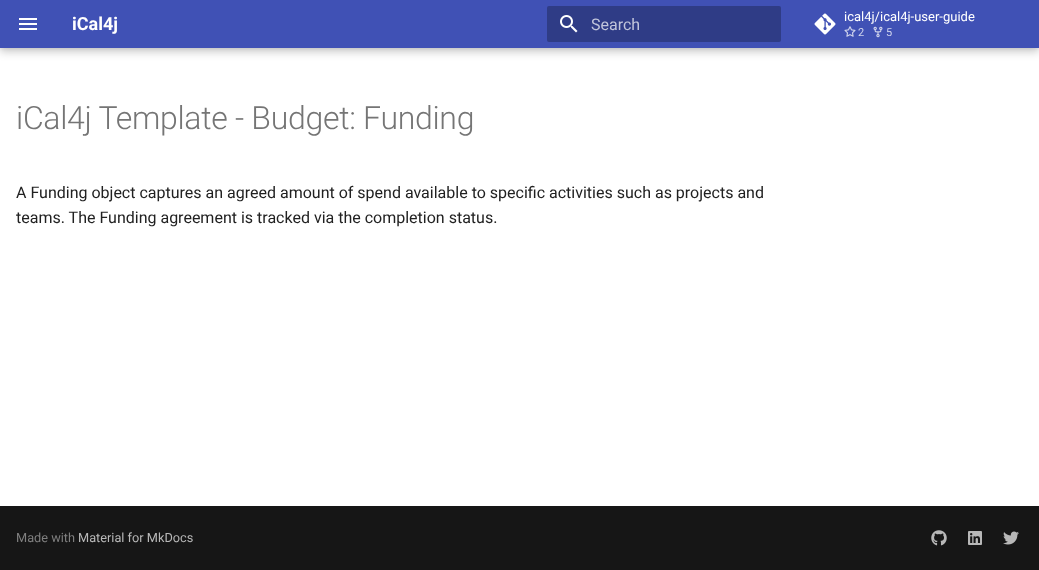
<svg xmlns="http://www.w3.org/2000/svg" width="1039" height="570">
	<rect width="100%" height="100%" fill="#FFFFFF" />
	<rect x="0" y="4" width="1039" height="48" fill="#000000" fill-opacity="0.2" filter="blur(4px)" />
	<rect x="0" y="0" width="1039" height="48" fill="#000000" fill-opacity="0.1" filter="blur(2px)" />
	<rect x="0" y="0" width="1039" height="48" fill="#4051B5" />
	<image x="19" y="18" width="18" height="12" href="assets/img1.png" />
	<text x="72" y="30" font-family="Roboto" font-size="18" font-weight="700" fill="#FFFFFF">iCal4j</text>
	<rect x="547" y="6" width="234" height="36" rx="2" fill="#2F3C86" />
	<image x="560" y="15" width="18" height="18" href="assets/img2.png" />
	<text x="591" y="30" font-family="Roboto" font-size="16" fill="#C1C5DB">Search</text>
	<image x="814" y="13" width="22" height="22" href="assets/img3.png" />
	<text x="844" y="21" font-family="Roboto" font-size="13" fill="#FFFFFF">ical4j/ical4j-user-guide</text>
	<image x="844" y="26" width="12" height="11" href="assets/img4.png" />
	<text x="858" y="36" font-family="Roboto" font-size="11" fill="#CFD4ED">2</text>
	<image x="873" y="26" width="10" height="12" href="assets/img5.png" />
	<text x="886" y="36" font-family="Roboto" font-size="11" fill="#CFD4ED">5</text>
	<text x="16" y="129" font-family="Roboto" font-size="32" font-weight="300" letter-spacing="-0.3" fill="#757575">iCal4j Template - Budget: Funding</text>
	<g font-family="Roboto" font-size="16" fill="#212121">
		<text x="16" y="198">A Funding object captures an agreed amount of spend available to specific activities such as projects and</text>
		<text x="16" y="223">teams. The Funding agreement is tracked via the completion status.</text>
	</g>
	<rect x="0" y="506" width="1039" height="64" fill="#161616" />
	<text x="16" y="542" font-family="Roboto" font-size="12.75" fill="#7F7F7F">Made with</text>
	<text x="78" y="542" font-family="Roboto" font-size="12.75" fill="#B9B9B9">Material for MkDocs</text>
	<image x="931" y="530" width="16" height="16" href="assets/img6.png" />
	<image x="968" y="531" width="14" height="14" href="assets/img7.png" />
	<image x="1003" y="531" width="16" height="14" href="assets/img8.png" />
</svg>
